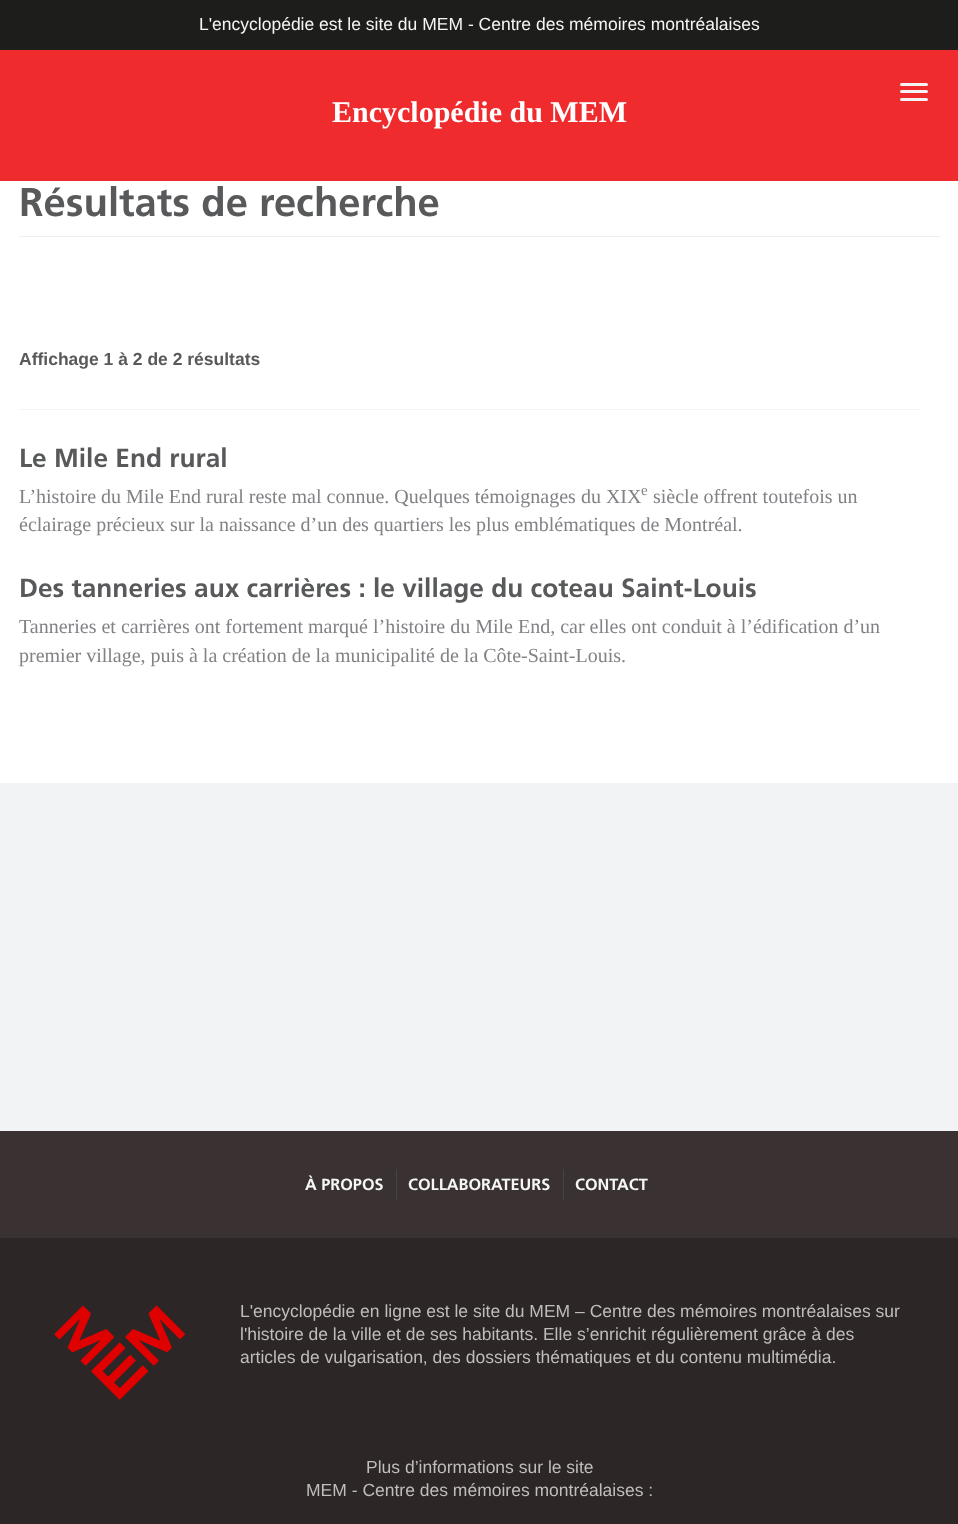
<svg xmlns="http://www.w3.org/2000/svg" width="958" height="1524">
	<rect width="100%" height="100%" fill="#F1F3F4" />
	<rect x="0" y="0" width="958" height="50" fill="#1D1D1B" />
	<text x="199" y="30" font-family="Liberation Sans" font-size="17.5" fill="#F6F6F6">L'encyclopédie est le site du MEM - Centre des mémoires montréalaises</text>
	<rect x="0" y="50" width="958" height="131" fill="#EF2B2D" />
	<rect x="900" y="83" width="28" height="3" rx="1.5" fill="#F1F3F4" />
	<rect x="900" y="90" width="28" height="3" rx="1.5" fill="#F1F3F4" />
	<rect x="900" y="98" width="28" height="3" rx="1.5" fill="#F1F3F4" />
	<text x="332" y="122" font-family="Liberation Serif" font-size="30" font-weight="700" fill="#FFFFFF">Encyclopédie du MEM</text>
	<rect x="0" y="181" width="958" height="602" fill="#FFFFFF" />
	<rect x="19" y="236" width="921" height="1" fill="#EEEEEE" />
	<text x="19" y="216" font-family="'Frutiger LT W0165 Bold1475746'" font-size="40" font-weight="700" fill="#58595B">Résultats de recherche</text>
	<rect x="19" y="409" width="902" height="1" fill="#F1F3F4" />
	<text x="19" y="365" font-family="Liberation Sans" font-size="17.5" font-weight="700" fill="#58595B">Affichage 1 à 2 de 2 résultats</text>
	<text x="19" y="467" font-family="'Frutiger LT W0165 Bold1475746'" font-size="26.25" font-weight="700" fill="#58595B">Le Mile End rural</text>
	<text x="19" y="503" font-family="Liberation Serif" font-size="20" fill="#808285">L’histoire du Mile End rural reste mal connue. Quelques témoignages du XIX</text>
	<text x="641" y="495" font-family="Liberation Serif" font-size="15" fill="#808285">e</text>
	<g font-family="Liberation Serif" font-size="20" fill="#808285">
		<text x="653" y="503">siècle offrent toutefois un</text>
		<text x="19" y="531">éclairage précieux sur la naissance d’un des quartiers les plus emblématiques de Montréal.</text>
	</g>
	<text x="19" y="597" font-family="'Frutiger LT W0165 Bold1475746'" font-size="26.25" font-weight="700" fill="#58595B">Des tanneries aux carrières : le village du coteau Saint-Louis</text>
	<g font-family="Liberation Serif" font-size="20" fill="#808285">
		<text x="19" y="633">Tanneries et carrières ont fortement marqué l’histoire du Mile End, car elles ont conduit à l’édification d’un</text>
		<text x="19" y="662">premier village, puis à la création de la municipalité de la Côte-Saint-Louis.</text>
	</g>
	<rect x="0" y="1131" width="958" height="107" fill="#3A3232" />
	<rect x="396" y="1169" width="1" height="31" fill="#474444" />
	<text x="305" y="1190" font-family="'Frutiger LT W0165 Bold1475746'" font-size="16.25" font-weight="700" fill="#F6F6F6">À PROPOS</text>
	<rect x="563" y="1169" width="1" height="31" fill="#474444" />
	<g font-family="'Frutiger LT W0165 Bold1475746'" font-size="16.25" font-weight="700" fill="#F6F6F6">
		<text x="408" y="1190">COLLABORATEURS</text>
		<text x="575" y="1190">CONTACT</text>
	</g>
	<rect x="0" y="1238" width="958" height="286" fill="#2C2626" />
	<image x="54" y="1305" width="132" height="95" href="assets/img1.png" />
	<g font-family="Liberation Sans" font-size="17.5" fill="#BFBEBB">
		<text x="240" y="1317">L'encyclopédie en ligne est le site du MEM – Centre des mémoires montréalaises sur</text>
		<text x="240" y="1340">l'histoire de la ville et de ses habitants. Elle s’enrichit régulièrement grâce à des</text>
		<text x="240" y="1363">articles de vulgarisation, des dossiers thématiques et du contenu multimédia.</text>
		<text x="366" y="1473">Plus d’informations sur le site</text>
		<text x="306" y="1496">MEM - Centre des mémoires montréalaises :</text>
	</g>
</svg>
